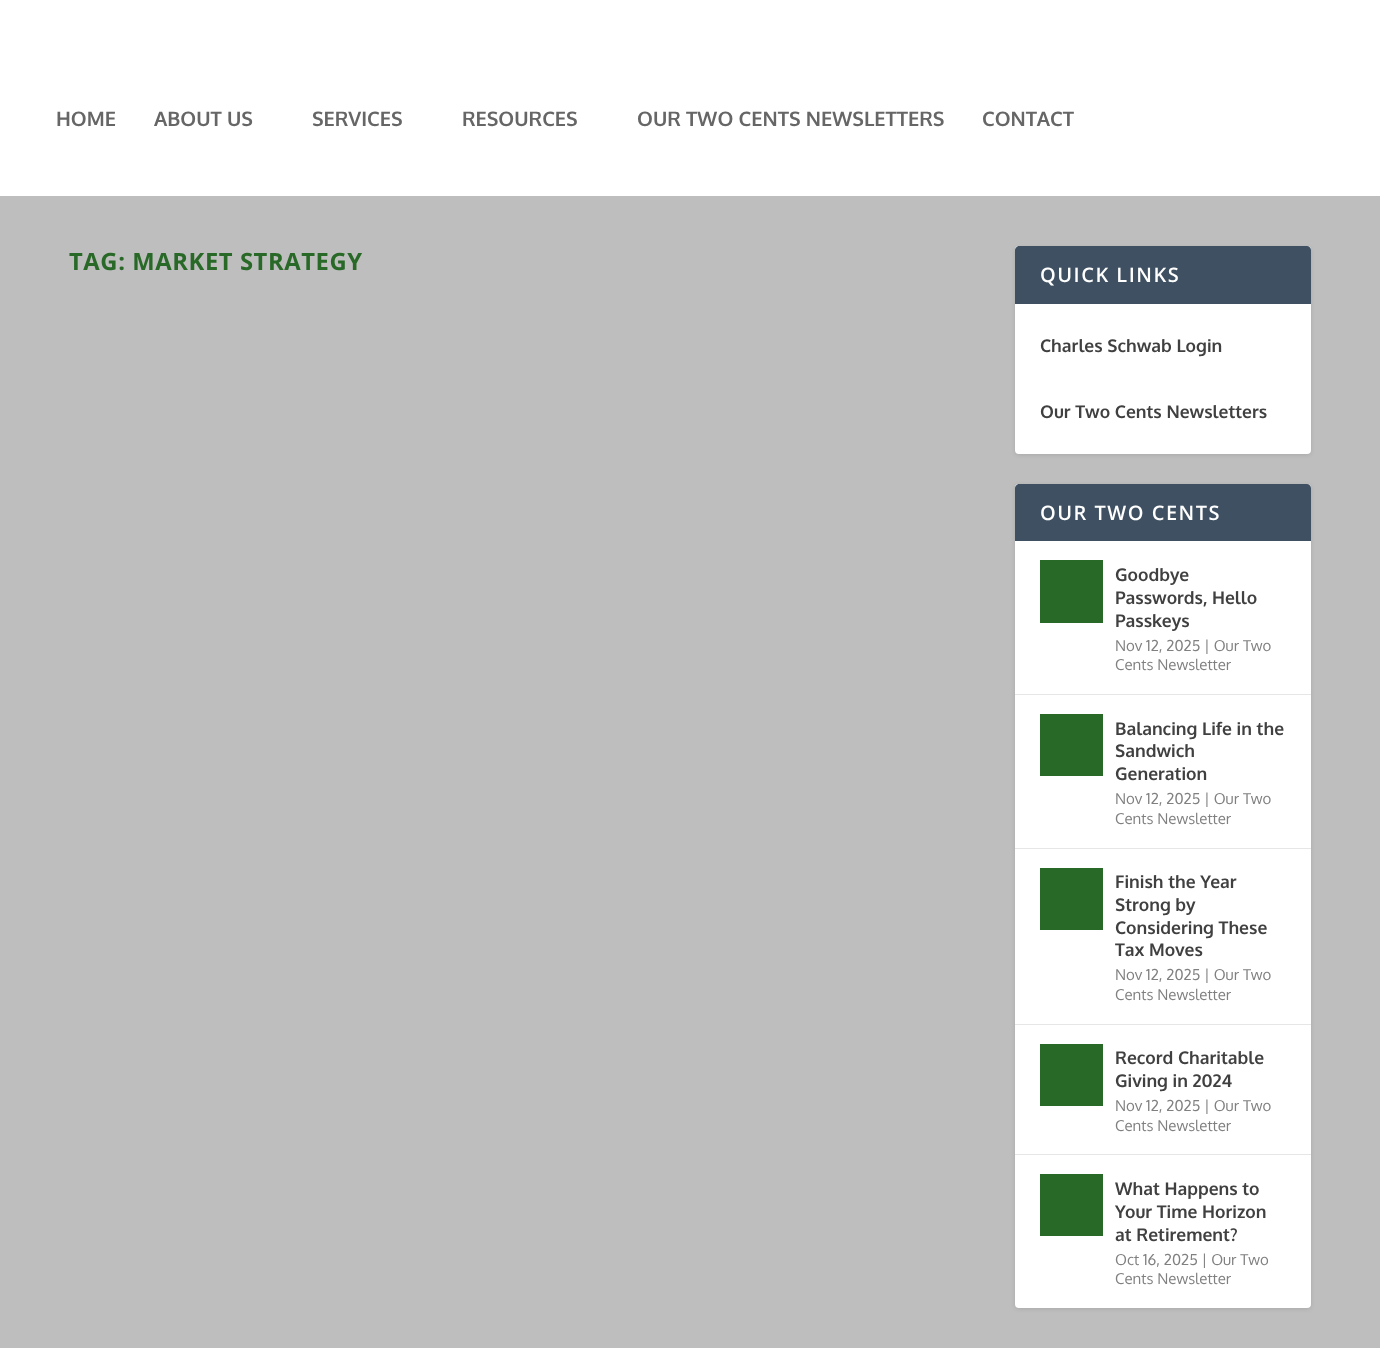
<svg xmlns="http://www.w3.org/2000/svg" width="1380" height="1348">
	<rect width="100%" height="100%" fill="#BEBEBE" />
	<rect x="0" y="0" width="1380" height="196" fill="#FFFFFF" />
	<g font-family="Oxygen" font-size="20" font-weight="700" fill="#666666">
		<text x="56" y="126">HOME</text>
		<text x="154" y="126">ABOUT US</text>
		<text x="312" y="126">SERVICES</text>
		<text x="462" y="126">RESOURCES</text>
		<text x="637" y="126">OUR TWO CENTS NEWSLETTERS</text>
		<text x="982" y="126">CONTACT</text>
	</g>
	<text x="69" y="270" font-family="Open Sans" font-size="23.75" font-weight="700" letter-spacing="0.6" fill="#296928">TAG: MARKET STRATEGY</text>
	<rect x="1015" y="248" width="296" height="207" rx="4" fill="#000000" fill-opacity="0.1" filter="blur(2px)" />
	<rect x="1015" y="246" width="296" height="208" rx="4" fill="#FFFFFF" />
	<path d="M1019 246H1307C1309 246 1311 248 1311 250V304H1015V250C1015 248 1017 246 1019 246Z" fill="#3E5062" />
	<text x="1040" y="282" font-family="Open Sans" font-size="20" font-weight="600" letter-spacing="1.5" fill="#FFFFFF">QUICK LINKS</text>
	<g font-family="Oxygen" font-size="17.5" font-weight="700" fill="#404040">
		<text x="1040" y="352">Charles Schwab Login</text>
		<text x="1040" y="418">Our Two Cents Newsletters</text>
	</g>
	<rect x="1015" y="485" width="296" height="824" rx="4" fill="#000000" fill-opacity="0.1" filter="blur(2px)" />
	<rect x="1015" y="484" width="296" height="824" rx="4" fill="#FFFFFF" />
	<path d="M1019 484H1307C1309 484 1311 486 1311 488V541H1015V488C1015 486 1017 484 1019 484Z" fill="#3E5062" />
	<text x="1040" y="520" font-family="Open Sans" font-size="20" font-weight="600" letter-spacing="1.5" fill="#FFFFFF">OUR TWO CENTS</text>
	<rect x="1015" y="694" width="296" height="1" fill="#E6E6E6" />
	<rect x="1040" y="560" width="63" height="63" fill="#296928" />
	<g font-family="Oxygen" font-size="17.5" font-weight="700" fill="#404040">
		<text x="1115" y="581">Goodbye</text>
		<text x="1115" y="604">Passwords, Hello</text>
		<text x="1115" y="627">Passkeys</text>
	</g>
	<g font-family="Oxygen" font-size="15" fill="#808080">
		<text x="1115" y="651">Nov 12, 2025 | Our Two</text>
		<text x="1115" y="670">Cents Newsletter</text>
	</g>
	<rect x="1015" y="848" width="296" height="1" fill="#E6E6E6" />
	<rect x="1040" y="714" width="63" height="62" fill="#296928" />
	<g font-family="Oxygen" font-size="17.5" font-weight="700" fill="#404040">
		<text x="1115" y="735">Balancing Life in the</text>
		<text x="1115" y="757">Sandwich</text>
		<text x="1115" y="780">Generation</text>
	</g>
	<g font-family="Oxygen" font-size="15" fill="#808080">
		<text x="1115" y="804">Nov 12, 2025 | Our Two</text>
		<text x="1115" y="824">Cents Newsletter</text>
	</g>
	<rect x="1015" y="1024" width="296" height="1" fill="#E6E6E6" />
	<rect x="1040" y="868" width="63" height="62" fill="#296928" />
	<g font-family="Oxygen" font-size="17.5" font-weight="700" fill="#404040">
		<text x="1115" y="888">Finish the Year</text>
		<text x="1115" y="911">Strong by</text>
		<text x="1115" y="934">Considering These</text>
		<text x="1115" y="956">Tax Moves</text>
	</g>
	<g font-family="Oxygen" font-size="15" fill="#808080">
		<text x="1115" y="980">Nov 12, 2025 | Our Two</text>
		<text x="1115" y="1000">Cents Newsletter</text>
	</g>
	<rect x="1015" y="1154" width="296" height="1" fill="#E6E6E6" />
	<rect x="1040" y="1044" width="63" height="62" fill="#296928" />
	<g font-family="Oxygen" font-size="17.5" font-weight="700" fill="#404040">
		<text x="1115" y="1064">Record Charitable</text>
		<text x="1115" y="1087">Giving in 2024</text>
	</g>
	<g font-family="Oxygen" font-size="15" fill="#808080">
		<text x="1115" y="1111">Nov 12, 2025 | Our Two</text>
		<text x="1115" y="1131">Cents Newsletter</text>
	</g>
	<rect x="1040" y="1174" width="63" height="62" fill="#296928" />
	<g font-family="Oxygen" font-size="17.5" font-weight="700" fill="#404040">
		<text x="1115" y="1195">What Happens to</text>
		<text x="1115" y="1218">Your Time Horizon</text>
		<text x="1115" y="1241">at Retirement?</text>
	</g>
	<g font-family="Oxygen" font-size="15" fill="#808080">
		<text x="1115" y="1265">Oct 16, 2025 | Our Two</text>
		<text x="1115" y="1284">Cents Newsletter</text>
	</g>
</svg>
